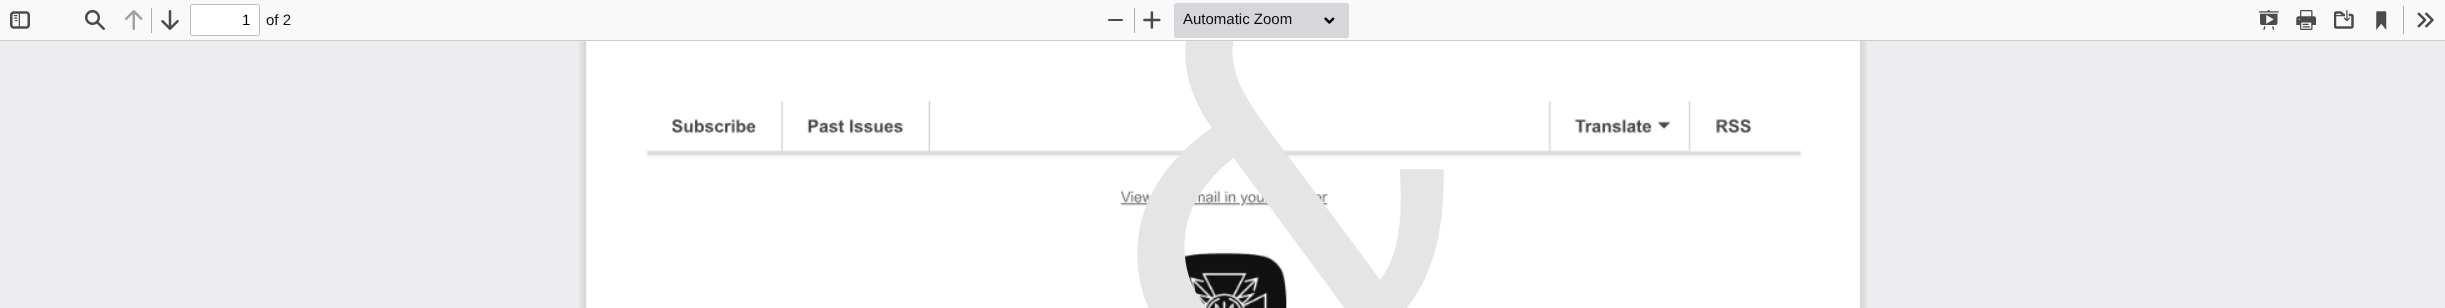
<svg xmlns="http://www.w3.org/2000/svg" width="2445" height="308">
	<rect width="100%" height="100%" fill="#EDEDF0" />
	<image x="579" y="41" width="1288" height="267" href="assets/img12.png" />
	<image x="586" y="41" width="1274" height="267" href="assets/img13.png" />
	<text x="1122" y="373" font-family="DejaVu Sans Mono" font-size="549" letter-spacing="-303" fill="#E5E5E5">&amp;</text>
	<rect x="0" y="40" width="2445" height="1" fill="#CCCCCC" />
	<rect x="0" y="0" width="2445" height="40" fill="#F9F9FA" />
	<image x="10" y="11" width="20" height="18" href="assets/img1.png" />
	<image x="85" y="10" width="20" height="20" href="assets/img2.png" />
	<image x="125" y="10" width="18" height="20" href="assets/img3.png" />
	<rect x="151" y="8" width="1" height="25" fill="#AEAEAF" />
	<image x="161" y="10" width="18" height="20" href="assets/img4.png" />
	<rect x="191" y="5" width="68" height="30" rx="1" fill="#FFFFFF" />
	<rect x="190.5" y="4.5" width="69" height="31" rx="2" fill="none" stroke="#BBBBBC" />
	<text x="242" y="25" font-family="Liberation Sans" font-size="15" fill="#060606">1</text>
	<text x="266" y="25" font-family="Liberation Sans" font-size="15" fill="#0C0C0D">of 2</text>
	<rect x="1108" y="19" width="15" height="2" rx="1" fill="#4B4B4B" />
	<rect x="1134" y="8" width="1" height="25" fill="#AEAEAF" />
	<image x="1143" y="11" width="18" height="18" href="assets/img5.png" />
	<rect x="1174" y="3" width="175" height="35" rx="2.5" fill="#D7D7DB" />
	<text x="1183" y="24" font-family="Liberation Sans" font-size="15" fill="#0C0C0D">Automatic Zoom</text>
	<image x="1324" y="17" width="11" height="7" href="assets/img6.png" />
	<image x="2259" y="10" width="20" height="20" href="assets/img7.png" />
	<image x="2296" y="10" width="20" height="20" href="assets/img8.png" />
	<image x="2334" y="10" width="20" height="19" href="assets/img9.png" />
	<image x="2376" y="11" width="11" height="19" href="assets/img10.png" />
	<rect x="2403" y="6" width="1" height="28" fill="#AEAEAF" />
	<image x="2417" y="12" width="17" height="16" href="assets/img11.png" />
</svg>
